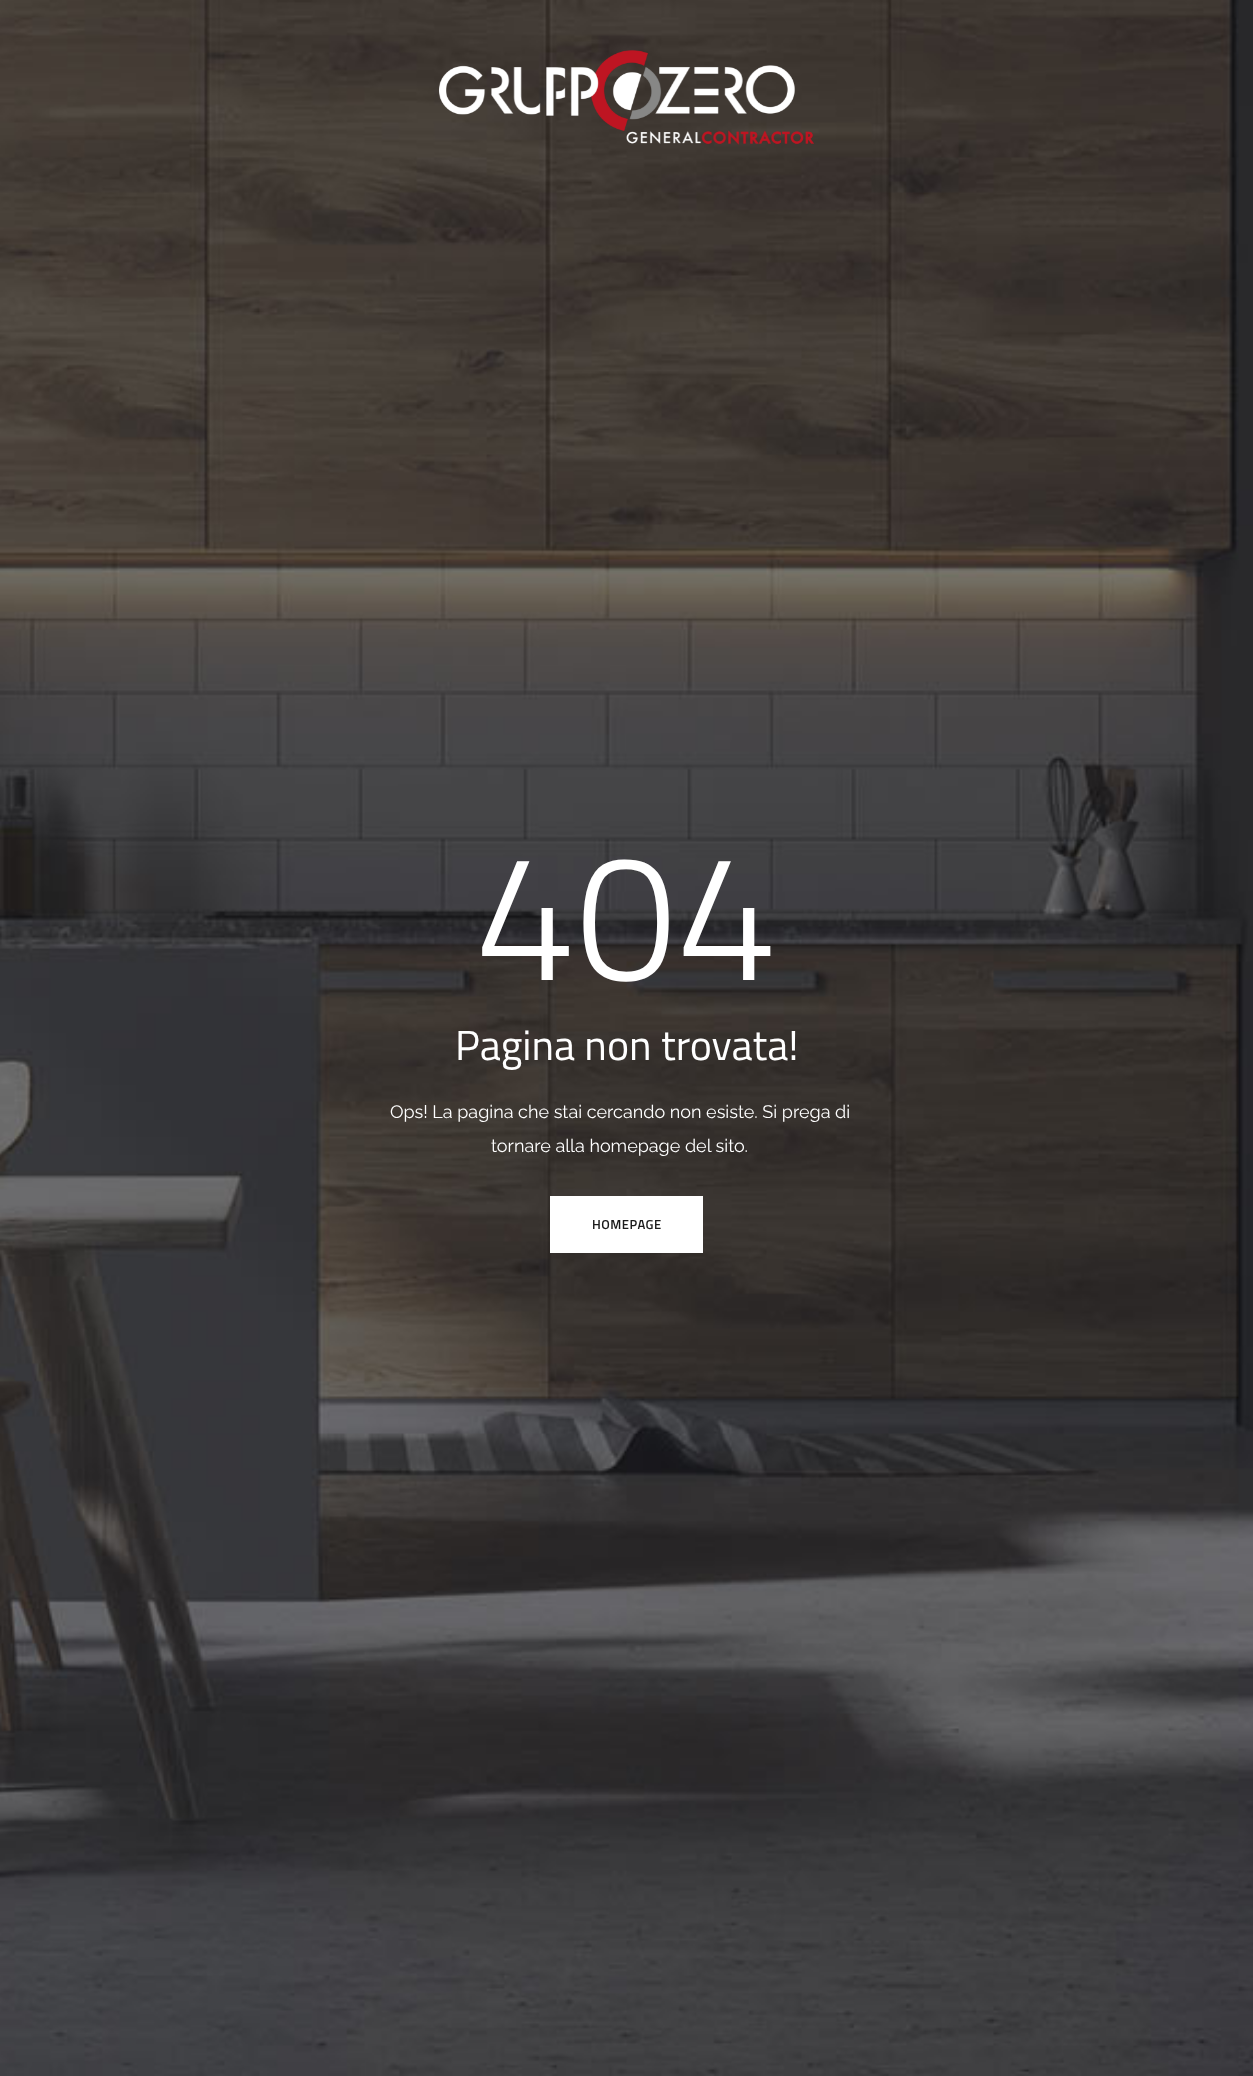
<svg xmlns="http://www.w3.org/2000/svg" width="1253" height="2076">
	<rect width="100%" height="100%" fill="#FFFFFF" />
	<image x="0" y="0" width="1253" height="2076" href="assets/img1.png" />
	<image x="439" y="50" width="375" height="95" href="assets/img2.png" />
	<text x="475" y="980" font-family="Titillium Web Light" font-size="180" font-weight="300" fill="#FFFFFF">404</text>
	<text x="455" y="1060" font-family="Titillium Web" font-size="42" fill="#FFFFFF">Pagina non trovata!</text>
	<g font-family="Raleway" font-size="18" fill="#FFFFFF">
		<text x="390" y="1118">Ops! La pagina che stai cercando non esiste. Si prega di</text>
		<text x="491" y="1152">tornare alla homepage del sito.</text>
	</g>
	<rect x="550" y="1196" width="153" height="57" fill="#FFFFFF" />
	<text x="592" y="1229" font-family="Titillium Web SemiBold" font-size="13" font-weight="600" letter-spacing="0.5" fill="#1A1A1A">HOMEPAGE</text>
</svg>
